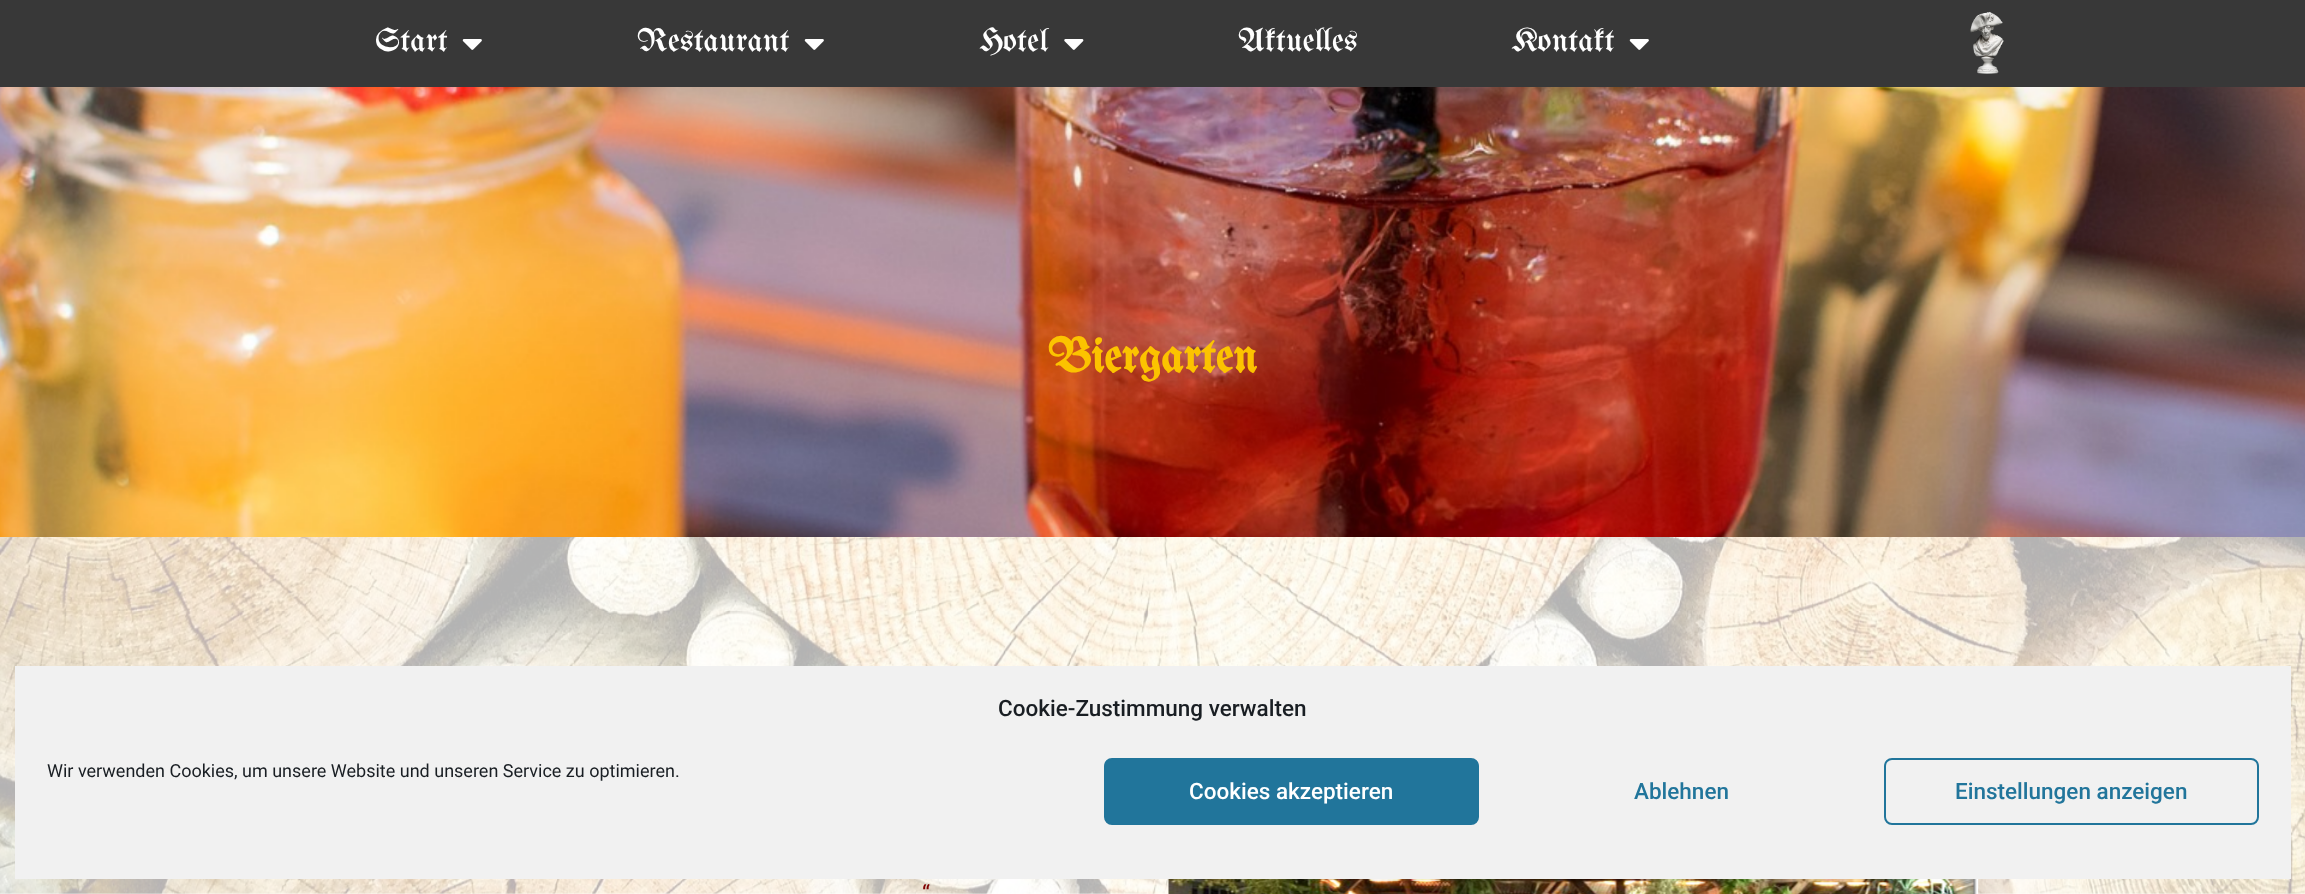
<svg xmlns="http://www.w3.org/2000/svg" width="2305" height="894">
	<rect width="100%" height="100%" fill="#FFFFFF" />
	<rect x="0" y="0" width="2305" height="87" fill="#383838" />
	<text x="375" y="51" font-family="UnifrakturMaguntia" font-size="33" fill="#FFFFFF">Start</text>
	<image x="462" y="39" width="20" height="11" href="assets/img1.png" />
	<text x="637" y="51" font-family="UnifrakturMaguntia" font-size="33" fill="#FFFFFF">Restaurant</text>
	<image x="804" y="39" width="20" height="11" href="assets/img1.png" />
	<text x="979" y="51" font-family="UnifrakturMaguntia" font-size="33" fill="#FFFFFF">Hotel</text>
	<image x="1064" y="39" width="20" height="11" href="assets/img2.png" />
	<g font-family="UnifrakturMaguntia" font-size="33" fill="#FFFFFF">
		<text x="1238" y="51">Aktuelles</text>
		<text x="1511" y="51">Kontakt</text>
	</g>
	<image x="1629" y="39" width="20" height="11" href="assets/img1.png" />
	<image x="1970" y="11" width="34" height="63" href="assets/img3.png" />
	<image x="0" y="87" width="2305" height="450" href="assets/img4.png" />
	<text x="1048" y="372" font-family="UnifrakturMaguntia" font-size="48" font-weight="700" fill="#FCC300">Biergarten</text>
	<image x="0" y="537" width="2305" height="357" href="assets/img5.png" />
	<text x="922" y="901" font-family="Roboto" font-size="22.5" fill="#800000">“</text>
	<image x="1168" y="879" width="811" height="15" href="assets/img6.png" />
	<rect x="15" y="666" width="2276" height="213" fill="#F1F1F1" />
	<text x="998" y="716" font-family="Roboto" font-size="22.5" font-weight="500" fill="#191E23">Cookie-Zustimmung verwalten</text>
	<text x="47" y="777" font-family="Roboto" font-size="18" fill="#191E23">Wir verwenden Cookies, um unsere Website und unseren Service zu optimieren.</text>
	<rect x="1105" y="759" width="373" height="65" rx="7" fill="#21759B" stroke="#21759B" stroke-width="2" />
	<text x="1189" y="799" font-family="Roboto" font-size="22.5" font-weight="500" fill="#FFFFFF">Cookies akzeptieren</text>
	<text x="1634" y="799" font-family="Roboto" font-size="22.5" font-weight="500" fill="#21759B">Ablehnen</text>
	<rect x="1885" y="759" width="373" height="65" rx="7" fill="none" stroke="#21759B" stroke-width="2" />
	<text x="1955" y="799" font-family="Roboto" font-size="22.5" font-weight="500" fill="#21759B">Einstellungen anzeigen</text>
</svg>
